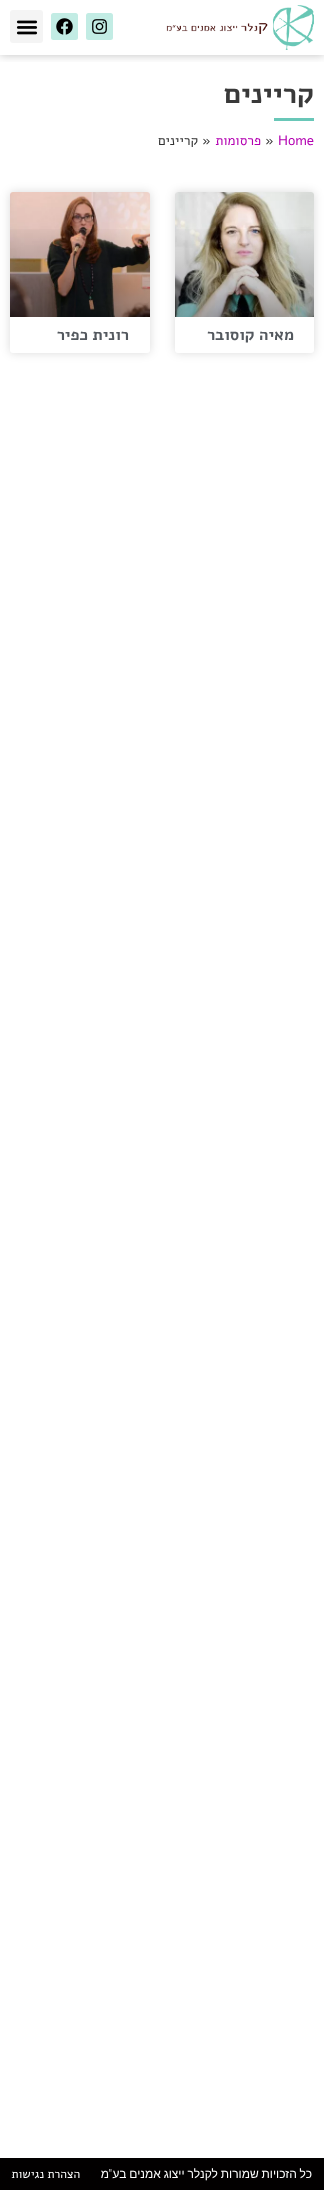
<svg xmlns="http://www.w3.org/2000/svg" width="324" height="2190">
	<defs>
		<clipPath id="clip1"><rect x="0" y="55" width="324" height="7" /></clipPath>
		<linearGradient id="g1" gradientUnits="userSpaceOnUse" x1="245" y1="317" x2="245" y2="192"><stop offset="0" stop-color="#000000" stop-opacity="0.35" /><stop offset="0.75" stop-color="#000000" stop-opacity="0" /></linearGradient>
		<linearGradient id="g2" gradientUnits="userSpaceOnUse" x1="80" y1="317" x2="80" y2="192"><stop offset="0" stop-color="#000000" stop-opacity="0.35" /><stop offset="0.75" stop-color="#000000" stop-opacity="0" /></linearGradient>
	</defs>
	<rect width="100%" height="100%" fill="#FFFFFF" />
	<g clip-path="url(#clip1)">
		<rect x="0" y="0" width="324" height="55" fill="#000000" fill-opacity="0.25" filter="blur(5px)" />
	</g>
	<image x="166" y="5" width="148" height="45" href="assets/img1.png" />
	<rect x="86" y="13" width="27" height="27" rx="2.5" fill="#C2ECE4" />
	<image x="92" y="19" width="15" height="15" href="assets/img2.png" />
	<rect x="51" y="13" width="27" height="27" rx="2.5" fill="#C2ECE4" />
	<image x="56" y="18" width="17" height="17" href="assets/img3.png" />
	<rect x="10" y="10" width="33" height="33" rx="3" fill="#F4F4F4" />
	<image x="16" y="20" width="22" height="15" href="assets/img4.png" />
	<text x="314" y="103" font-family="Alef" font-size="28" font-weight="700" direction="rtl" fill="#393939">קריינים</text>
	<rect x="274" y="118" width="40" height="3" fill="#69C7B8" />
	<text x="278" y="145" font-family="Alef" font-size="13.5" fill="#B300B1">Home</text>
	<text x="265" y="145" font-family="Alef" font-size="13.5" fill="#333333">»</text>
	<text x="261" y="145" font-family="Alef" font-size="13.5" direction="rtl" fill="#B300B1">פרסומות</text>
	<text x="202" y="145" font-family="Alef" font-size="13.5" fill="#333333">»</text>
	<text x="198" y="145" font-family="Alef" font-size="13.5" direction="rtl" fill="#333333">קריינים</text>
	<rect x="175" y="192" width="139" height="161" rx="3" fill="#000000" fill-opacity="0.15" filter="blur(5px)" />
	<rect x="175" y="192" width="139" height="161" rx="3" fill="#FFFFFF" />
	<image x="175" y="192" width="139" height="125" href="assets/img5.png" />
	<rect x="175" y="229" width="139" height="88" fill="url(#g1)" />
	<text x="294" y="340" font-family="Alef" font-size="16" font-weight="700" direction="rtl" fill="#54595F">מאיה קוסובר</text>
	<rect x="10" y="192" width="140" height="161" rx="3" fill="#000000" fill-opacity="0.15" filter="blur(5px)" />
	<rect x="10" y="192" width="140" height="161" rx="3" fill="#FFFFFF" />
	<image x="10" y="192" width="140" height="125" href="assets/img6.png" />
	<rect x="10" y="229" width="140" height="88" fill="url(#g2)" />
	<text x="129" y="340" font-family="Alef" font-size="16" font-weight="700" direction="rtl" fill="#54595F">רונית כפיר</text>
	<rect x="0" y="2158" width="324" height="32" fill="#020000" />
	<text x="312" y="2178" word-spacing="-0.5" font-family="Liberation Sans" font-size="12" direction="rtl" fill="#FFFFFF">כל הזכויות שמורות לקנלר ייצוג אמנים בע</text>
	<text x="112" y="2178" font-family="Roboto" font-size="12" font-weight="300" direction="rtl" fill="#FFFFFF">"</text>
	<text x="109" y="2178" font-family="Liberation Sans" font-size="12" direction="rtl" fill="#FFFFFF">מ</text>
	<text x="80" y="2178" font-family="Alef" font-size="12" direction="rtl" fill="#FFFFFF">הצהרת נגישות</text>
</svg>
